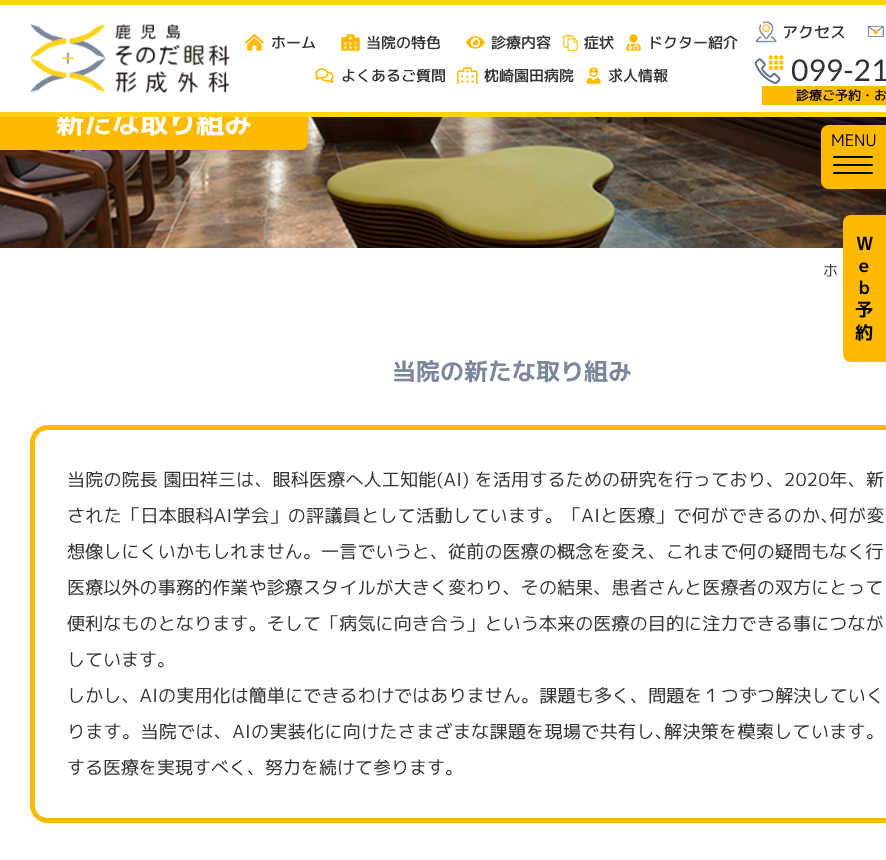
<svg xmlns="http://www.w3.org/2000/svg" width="886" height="860">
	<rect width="100%" height="100%" fill="#FFFFFF" />
	<image x="0" y="117" width="886" height="131" href="assets/img13.png" />
	<path d="M0 96H300C304.5 96 308 99.5 308 104V142C308 146.5 304.5 150 300 150H0Z" fill="#FFBA00" />
	<rect x="0" y="96" width="308" height="16" fill="#FFFFFF" />
	<rect x="0" y="0" width="886" height="5" fill="#FFD21A" />
	<text x="56" y="133" font-family="'M PLUS 1p'" font-size="28" font-weight="700" fill="#FFFFFF">新たな取り組み</text>
	<rect x="0" y="112" width="886" height="5" fill="#FFD21A" />
	<image x="30" y="23" width="200" height="71" href="assets/img1.png" />
	<image x="245" y="34" width="19" height="17" href="assets/img2.png" />
	<text x="271" y="48" font-family="'M PLUS 1p'" font-size="15" font-weight="500" fill="#333333">ホーム</text>
	<image x="341" y="34" width="19" height="17" href="assets/img3.png" />
	<text x="366" y="48" font-family="'M PLUS 1p'" font-size="15" font-weight="500" fill="#333333">当院の特色</text>
	<image x="466" y="36" width="19" height="13" href="assets/img4.png" />
	<text x="491" y="48" font-family="'M PLUS 1p'" font-size="15" font-weight="500" fill="#333333">診療内容</text>
	<image x="563" y="34" width="15" height="17" href="assets/img5.png" />
	<text x="584" y="48" font-family="'M PLUS 1p'" font-size="15" font-weight="500" fill="#333333">症状</text>
	<image x="626" y="34" width="15" height="17" href="assets/img6.png" />
	<text x="648" y="48" font-family="'M PLUS 1p'" font-size="15" font-weight="500" fill="#333333">ドクター紹介</text>
	<image x="315" y="68" width="19" height="15" href="assets/img7.png" />
	<text x="341" y="81" font-family="'M PLUS 1p'" font-size="15" font-weight="500" fill="#333333">よくあるご質問</text>
	<image x="457" y="67" width="21" height="17" href="assets/img8.png" />
	<text x="484" y="81" font-family="'M PLUS 1p'" font-size="15" font-weight="500" fill="#333333">枕崎園田病院</text>
	<image x="586" y="67" width="15" height="17" href="assets/img9.png" />
	<text x="608" y="81" font-family="'M PLUS 1p'" font-size="15" font-weight="500" fill="#333333">求人情報</text>
	<image x="755" y="21" width="22" height="22" href="assets/img10.png" />
	<text x="782" y="38" font-family="'M PLUS 1p'" font-size="16" font-weight="500" fill="#333333">アクセス</text>
	<image x="867" y="25" width="17" height="13" href="assets/img11.png" />
	<image x="754" y="55" width="30" height="29" href="assets/img12.png" />
	<text x="791" y="81" font-family="Lato" font-size="30" fill="#333333">099-21</text>
	<rect x="762" y="86" width="124" height="19" fill="#FFBA00" />
	<text x="796" y="100" font-family="'M PLUS 1p'" font-size="13" font-weight="500" fill="#000000">診療ご予約・お</text>
	<text x="823" y="276" font-family="'M PLUS 1p'" font-size="15" fill="#333333">ホ</text>
	<text x="392" y="380" font-family="'M PLUS 1p'" font-size="24" font-weight="700" fill="#7C879B">当院の新たな取り組み</text>
	<rect x="32.5" y="427.5" width="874" height="393" rx="15.5" fill="none" stroke="#FFBA00" stroke-width="5" />
	<text x="67" y="486" font-family="'M PLUS 1p'" font-size="18" letter-spacing="0.2" fill="#333333">当院の院長 園田祥三は、眼科医療へ人工知能(AI) を活用するための研究を行っており、2020年、新</text>
	<text x="67" y="522" font-family="'M PLUS 1p'" font-size="18" letter-spacing="0.35" fill="#333333">された「日本眼科AI学会」の評議員として活動しています。「AIと医療」で何ができるのか､何が変</text>
	<g font-family="'M PLUS 1p'" font-size="18" letter-spacing="0.15" fill="#333333">
		<text x="67" y="558">想像しにくいかもしれません。一言でいうと、従前の医療の概念を変え、これまで何の疑問もなく行</text>
		<text x="67" y="594">医療以外の事務的作業や診療スタイルが大きく変わり、その結果、患者さんと医療者の双方にとって</text>
		<text x="67" y="630">便利なものとなります。そして「病気に向き合う」という本来の医療の目的に注力できる事につなが</text>
	</g>
	<text x="67" y="666" font-family="'M PLUS 1p'" font-size="18" fill="#333333">しています。</text>
	<text x="67" y="702" font-family="'M PLUS 1p'" font-size="18" letter-spacing="0.15" fill="#333333">しかし、AIの実用化は簡単にできるわけではありません。課題も多く、問題を１つずつ解決していく</text>
	<text x="67" y="738" font-family="'M PLUS 1p'" font-size="18" letter-spacing="0.35" fill="#333333">ります。当院では、AIの実装化に向けたさまざまな課題を現場で共有し､解決策を模索しています。</text>
	<text x="67" y="774" font-family="'M PLUS 1p'" font-size="18" fill="#333333">する医療を実現すべく、努力を続けて参ります。</text>
	<path d="M829 125H886V189H829C824.5 189 821 185.5 821 181V133C821 128.5 824.5 125 829 125Z" fill="#FFBA00" />
	<text x="831" y="146" font-family="'M PLUS 1p'" font-size="16" fill="#000000">MENU</text>
	<rect x="833" y="156" width="40" height="2" rx="1" fill="#000000" />
	<rect x="833" y="164" width="40" height="2" rx="1" fill="#000000" />
	<rect x="833" y="172" width="40" height="2" rx="1" fill="#000000" />
	<path d="M851 215H886V362H851C846.5 362 843 358.5 843 354V223C843 218.5 846.5 215 851 215Z" fill="#FFBA00" />
	<g font-family="'M PLUS 1p'" font-size="18" font-weight="700" fill="#000000">
		<text x="856" y="250">W</text>
		<text x="855" y="272">ｅ</text>
		<text x="855" y="294">ｂ</text>
		<text x="855" y="316">予</text>
		<text x="855" y="339">約</text>
	</g>
</svg>
